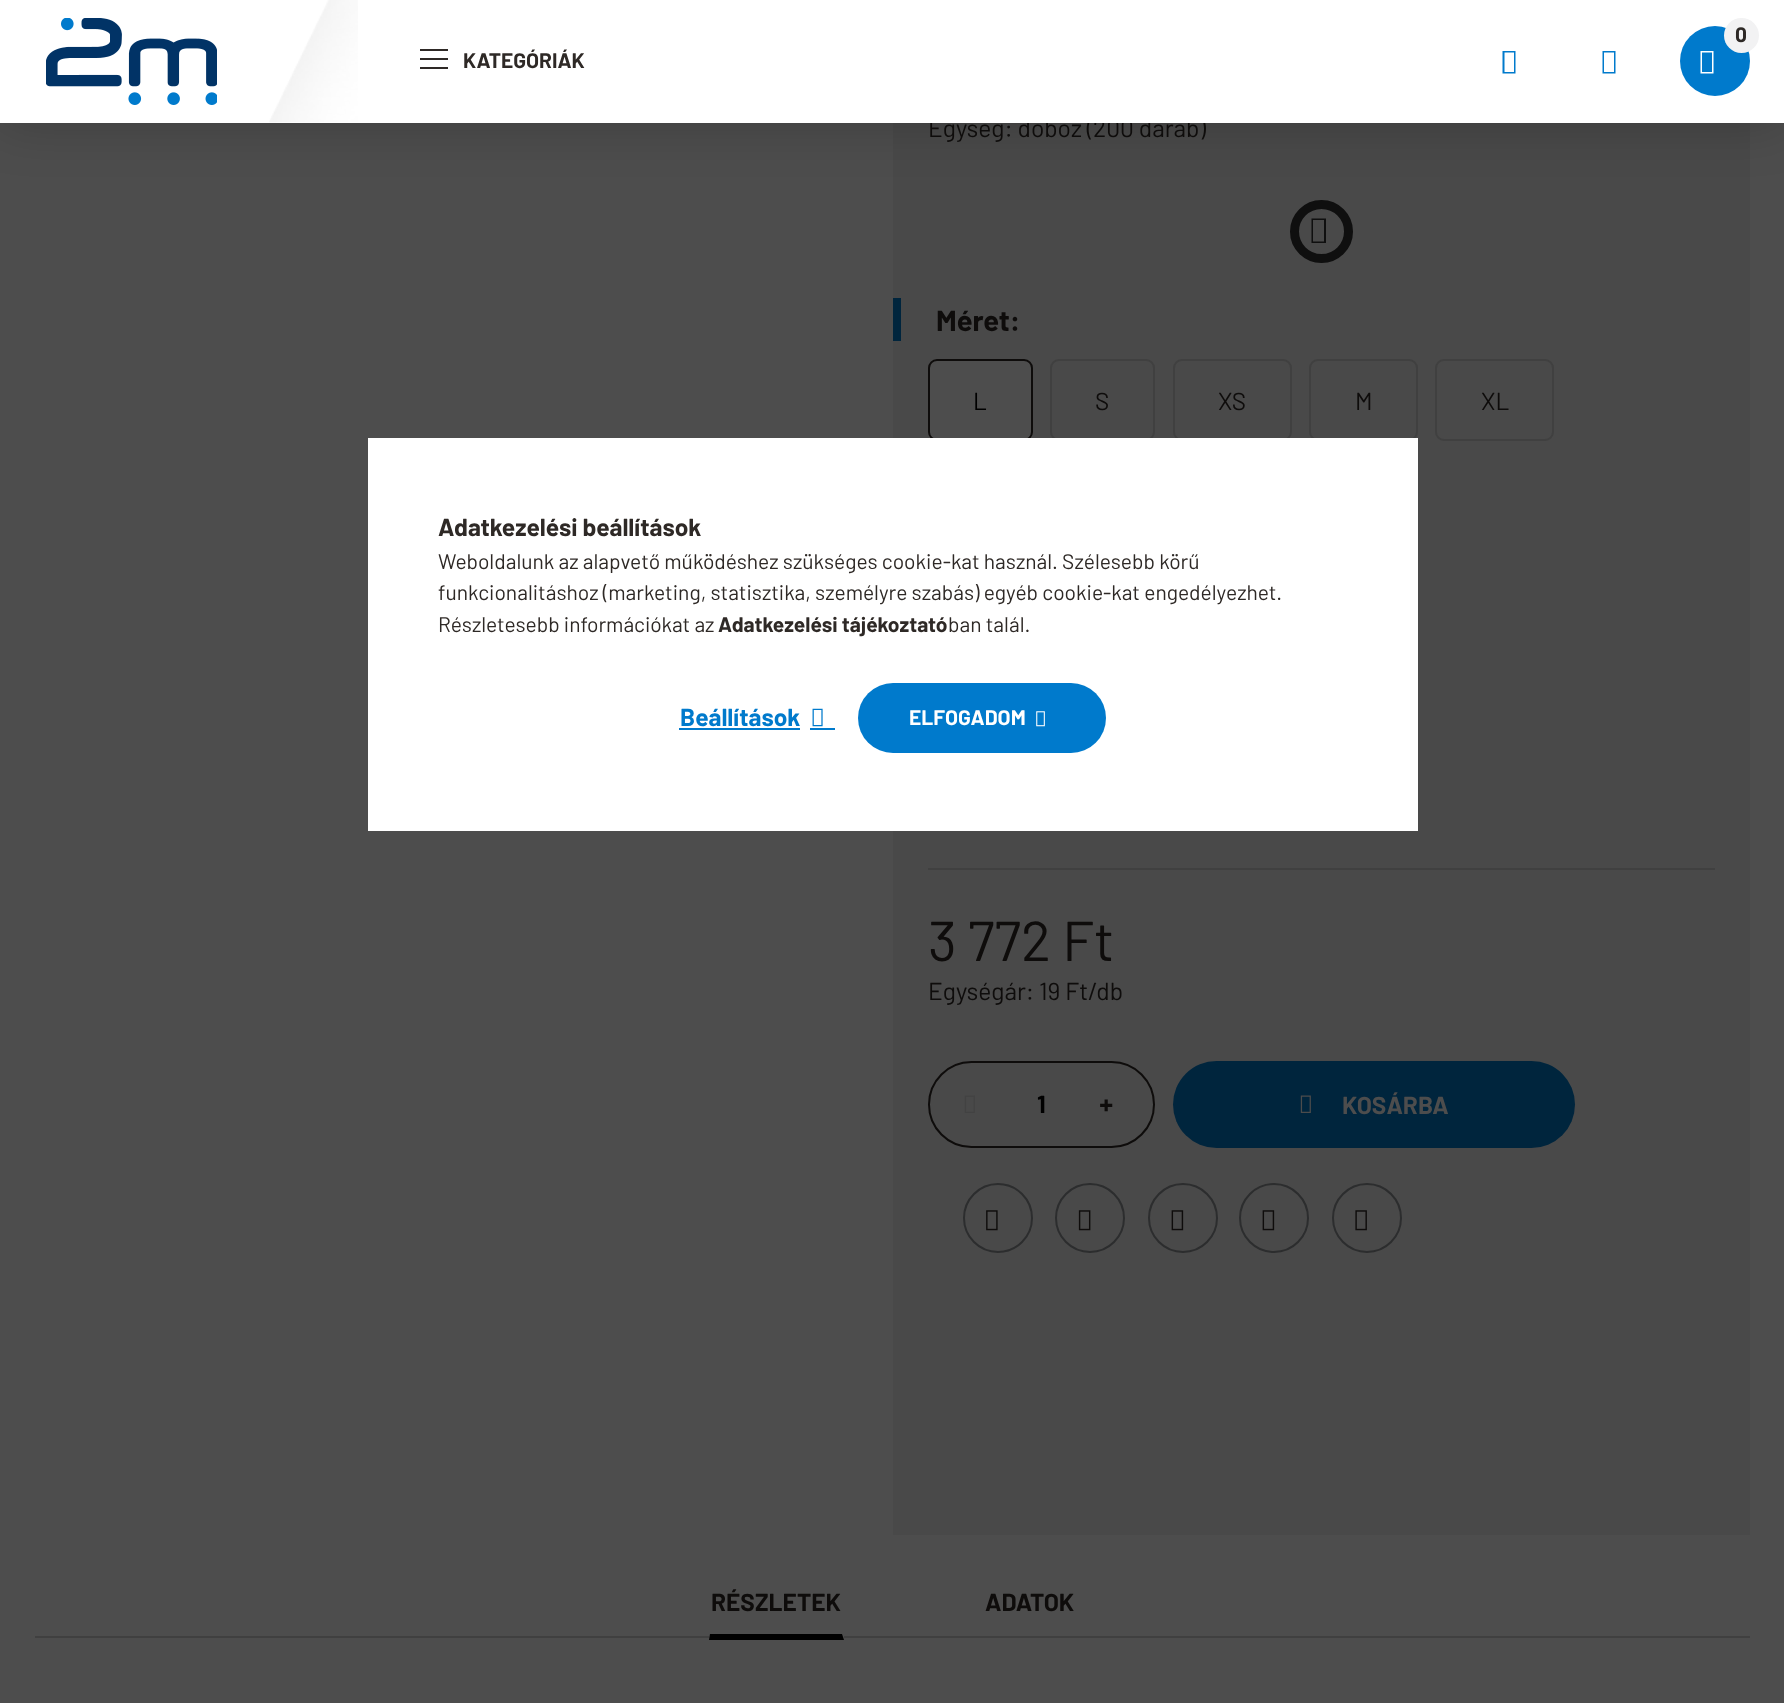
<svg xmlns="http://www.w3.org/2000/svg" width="1784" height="1703">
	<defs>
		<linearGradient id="g1" gradientUnits="userSpaceOnUse" x1="1173" y1="1104" x2="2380" y2="1104"><stop offset="0.33" stop-color="#00253D" /><stop offset="0.67" stop-color="#3E0A39" /></linearGradient>
		<linearGradient id="g2" gradientUnits="userSpaceOnUse" x1="858" y1="718" x2="1603" y2="718"><stop offset="0.33" stop-color="#007ACC" /><stop offset="0.67" stop-color="#CF21BE" /></linearGradient>
	</defs>
	<rect width="100%" height="100%" fill="#4D4D4D" />
	<rect x="893" y="123" width="857" height="1412" fill="#494949" />
	<circle cx="1321.5" cy="231.5" r="27" fill="none" stroke="#0F0F0F" stroke-width="9" />
	<rect x="0" y="0" width="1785" height="123" fill="#000000" fill-opacity="0.2" filter="blur(26px)" />
	<text x="928" y="137" font-family="Barlow" font-size="24.5" fill="#0E0C0B">Egység: doboz (200 darab)</text>
	<rect x="0" y="0" width="1784" height="123" fill="#FFFFFF" />
	<circle cx="1715" cy="61" r="35" fill="#007ACC" />
	<circle cx="1741.5" cy="35.5" r="17.5" fill="#F2F2F3" />
	<text x="1735" y="42" font-family="Barlow" font-size="21" font-weight="700" fill="#2E2926">0</text>
	<path d="M1700.5 73.5V51H1713.5V73.5ZM1702 72H1712V52.5H1702Z" fill="#FFFFFF" />
	<path d="M1502.5 73.5V51H1515.5V73.5ZM1504.5 72H1514V52.5H1504.5Z" fill="#007ACC" />
	<path d="M1602.5 73.5V51H1615.5V73.5ZM1604 72H1614V52.5H1604Z" fill="#007ACC" />
	<image x="269" y="0" width="89" height="123" href="assets/img1.png" />
	<image x="46" y="18" width="171" height="87" href="assets/img2.png" />
	<rect x="420" y="49" width="28" height="2" fill="#2E2926" />
	<rect x="420" y="58" width="28" height="2" fill="#2E2926" />
	<rect x="420" y="67" width="28" height="2" fill="#2E2926" />
	<text x="463" y="68" font-family="Barlow" font-size="21" font-weight="700" fill="#2E2926">KATEGÓRIÁK</text>
	<path d="M1311.5 243V218.5H1326V243ZM1313 241.5H1324V220H1313Z" fill="#0F0F0F" />
	<rect x="928" y="868" width="787" height="2" fill="#404040" />
	<rect x="893" y="298" width="8" height="43" fill="#00253D" />
	<text x="936" y="331" font-family="Barlow" font-size="29" font-weight="700" fill="#0E0C0B">Méret:</text>
	<rect x="929" y="360" width="103" height="80" rx="8" fill="#4D4D4D" stroke="#0E0C0B" stroke-width="2" />
	<text x="973" y="410" font-family="Barlow" font-size="24.5" fill="#000000">L</text>
	<rect x="1051" y="360" width="103" height="80" rx="8" fill="none" stroke="#404040" stroke-width="2" />
	<text x="1095" y="410" font-family="Barlow" font-size="24.5" fill="#0E0C0B">S</text>
	<rect x="1174" y="360" width="117" height="80" rx="8" fill="none" stroke="#404040" stroke-width="2" />
	<text x="1218" y="410" font-family="Barlow" font-size="24.5" fill="#0E0C0B">XS</text>
	<rect x="1310" y="360" width="107" height="80" rx="8" fill="none" stroke="#404040" stroke-width="2" />
	<text x="1355" y="410" font-family="Barlow" font-size="24.5" fill="#0E0C0B">M</text>
	<rect x="1436" y="360" width="117" height="80" rx="8" fill="none" stroke="#404040" stroke-width="2" />
	<text x="1481" y="410" font-family="Barlow" font-size="24.5" fill="#0E0C0B">XL</text>
	<text x="928" y="961" font-family="Barlow" font-size="56" fill="#0E0C0B">3 772 Ft</text>
	<text x="928" y="1000" font-family="Barlow" font-size="24.5" fill="#0E0C0B">Egységár: 19 Ft/db</text>
	<rect x="929" y="1062" width="225" height="85" rx="42.5" fill="none" stroke="#0E0C0B" stroke-width="2" />
	<image x="964" y="1095" width="11" height="18" href="assets/img3.png" />
	<text x="1037" y="1113" font-family="Barlow" font-size="24.5" font-weight="700" fill="#000000">1</text>
	<text x="1099" y="1114" font-family="Noto Sans" font-size="24.5" font-weight="900" fill="#0E0C0B">+</text>
	<rect x="1173" y="1061" width="402" height="87" rx="43.5" fill="url(#g1)" />
	<image x="1300" y="1095" width="11" height="18" href="assets/img4.png" />
	<text x="1342" y="1114" font-family="Barlow" font-size="24.5" font-weight="700" fill="#4D4D4D">KOSÁRBA</text>
	<circle cx="998" cy="1218" r="34" fill="none" stroke="#2C2D2E" stroke-width="2" />
	<image x="986" y="1210" width="12" height="21" href="assets/img5.png" />
	<circle cx="1090" cy="1218" r="34" fill="none" stroke="#2C2D2E" stroke-width="2" />
	<image x="1078" y="1210" width="13" height="21" href="assets/img6.png" />
	<circle cx="1183" cy="1218" r="34" fill="none" stroke="#2C2D2E" stroke-width="2" />
	<image x="1171" y="1210" width="13" height="21" href="assets/img7.png" />
	<circle cx="1274" cy="1218" r="34" fill="none" stroke="#2C2D2E" stroke-width="2" />
	<image x="1262" y="1210" width="13" height="21" href="assets/img7.png" />
	<circle cx="1367" cy="1218" r="34" fill="none" stroke="#2C2D2E" stroke-width="2" />
	<image x="1355" y="1210" width="12" height="21" href="assets/img8.png" />
	<rect x="35" y="1636" width="1715" height="2" fill="#404040" />
	<rect x="709" y="1636" width="135" height="2" fill="#4D4D4D" />
	<path d="M844 1640H709L710 1634H842Z" fill="#000000" />
	<g font-family="Barlow" font-size="24.5" font-weight="700" fill="#0E0C0B">
		<text x="711" y="1611">RÉSZLETEK</text>
		<text x="985" y="1611">ADATOK</text>
	</g>
	<rect x="368" y="438" width="1050" height="393" fill="#FFFFFF" />
	<text x="438" y="536" font-family="Barlow" font-size="24.5" font-weight="700" fill="#2E2926">Adatkezelési beállítások</text>
	<g font-family="Barlow" font-size="21" fill="#2E2926">
		<text x="438" y="569">Weboldalunk az alapvető működéshez szükséges cookie-kat használ. Szélesebb körű</text>
		<text x="438" y="600">funkcionalitáshoz (marketing, statisztika, személyre szabás) egyéb cookie-kat engedélyezhet.</text>
		<text x="438" y="632">Részletesebb információkat az</text>
	</g>
	<text x="718" y="632" font-family="Barlow" font-size="21" font-weight="700" fill="#2E2926">Adatkezelési tájékoztató</text>
	<text x="948" y="632" font-family="Barlow" font-size="21" fill="#2E2926">ban talál.</text>
	<text x="680" y="726" font-family="Barlow" font-size="24.5" font-weight="700" fill="#007ACC">Beállítások</text>
	<rect x="679" y="728" width="121" height="2" fill="#007ACC" />
	<image x="812" y="708" width="11" height="19" href="assets/img9.png" />
	<rect x="810" y="728" width="25" height="2" fill="#007ACC" />
	<rect x="858" y="683" width="248" height="70" rx="35" fill="url(#g2)" />
	<text x="909" y="725" font-family="Barlow" font-size="21" font-weight="700" fill="#FFFFFF">ELFOGADOM</text>
	<image x="1036" y="711" width="9" height="16" href="assets/img10.png" />
</svg>
